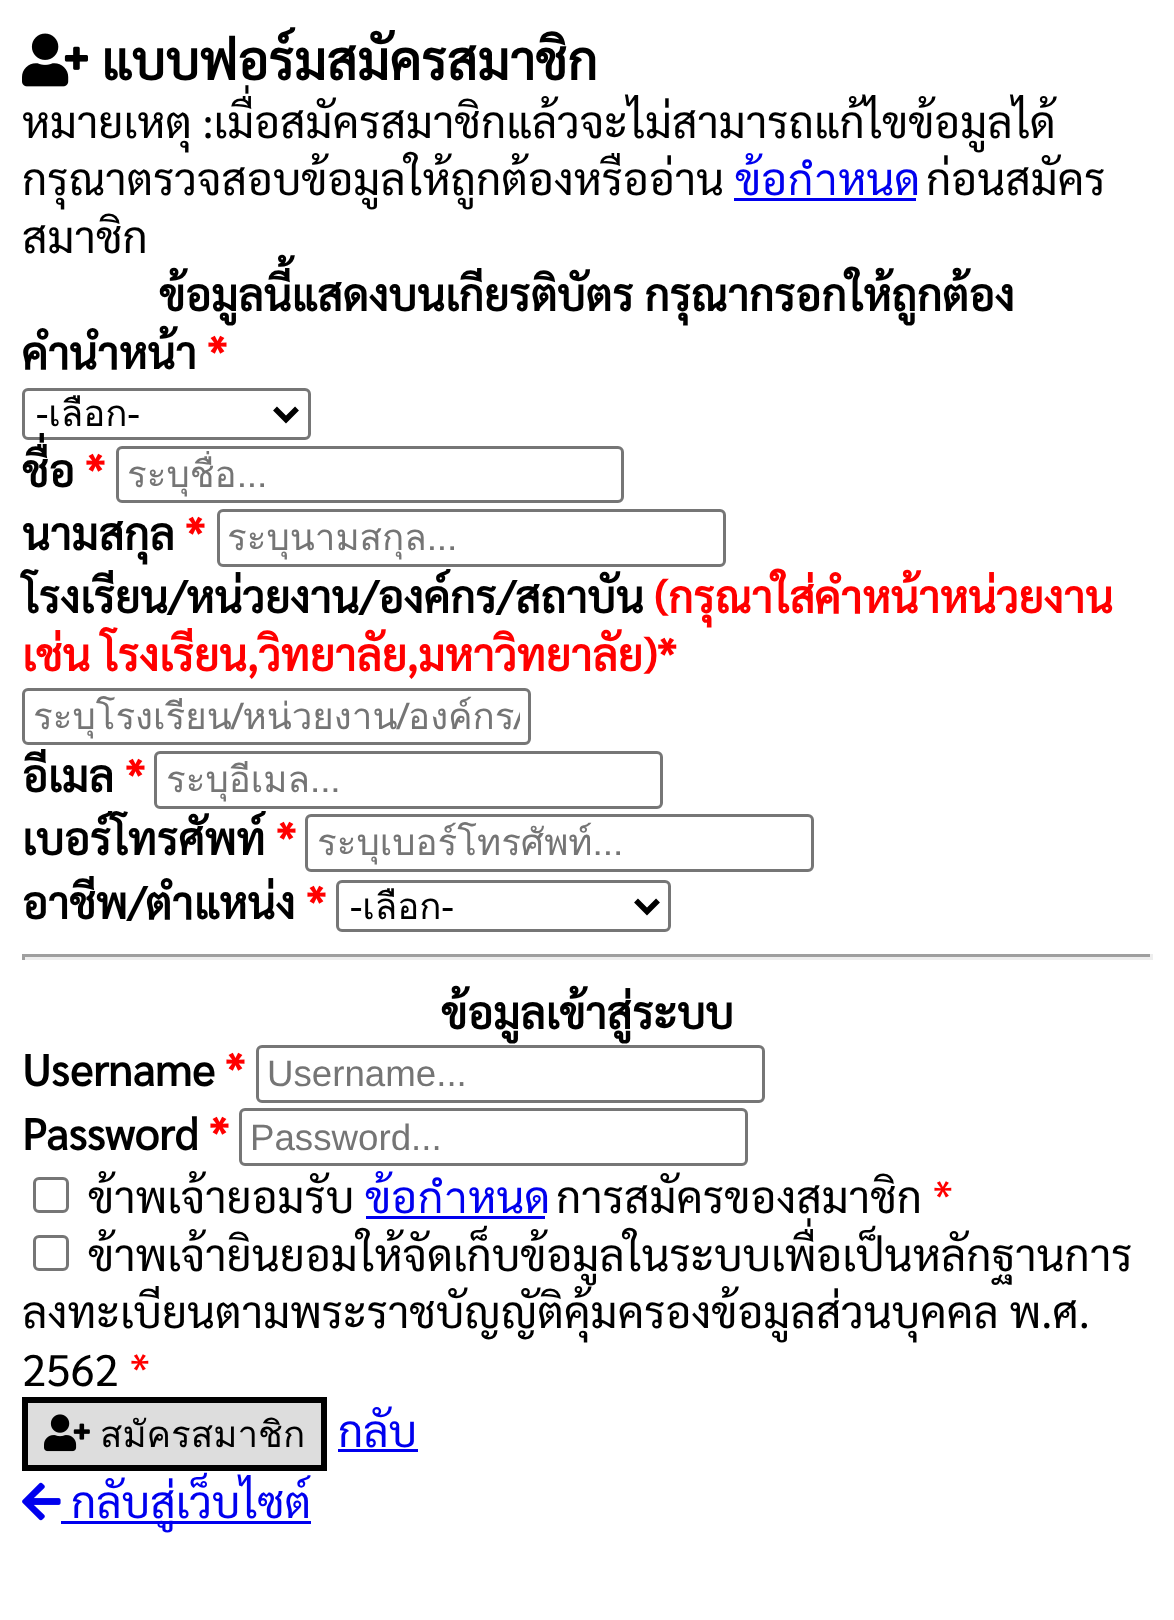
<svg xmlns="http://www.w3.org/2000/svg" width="1174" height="1620">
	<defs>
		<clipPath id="clip1"><rect x="127" y="451" width="486" height="47" /></clipPath>
		<clipPath id="clip2"><rect x="33" y="693" width="487" height="47" /></clipPath>
	</defs>
	<rect width="100%" height="100%" fill="#FFFFFF" />
	<image x="22" y="33" width="66" height="54" href="assets/img1.png" />
	<text x="101" y="80" font-family="Sarabun" font-size="52.75" font-weight="700" fill="#000000">แบบฟอร์มสมัครสมาชิก</text>
	<g font-family="Sarabun" font-size="44" fill="#000000">
		<text x="22" y="138">หมายเหตุ :เมื่อสมัครสมาชิกแล้วจะไม่สามารถแก้ไขข้อมูลได้</text>
		<text x="22" y="195">กรุณาตรวจสอบข้อมูลให้ถูกต้องหรืออ่าน</text>
	</g>
	<text x="735" y="195" font-family="Sarabun" font-size="44" fill="#0000EE">ข้อกำหนด</text>
	<rect x="734" y="198" width="182" height="3" fill="#0000EE" />
	<g font-family="Sarabun" font-size="44" fill="#000000">
		<text x="926" y="195">ก่อนสมัคร</text>
		<text x="22" y="253">สมาชิก</text>
	</g>
	<g font-family="Sarabun" font-size="44" font-weight="700" fill="#000000">
		<text x="159" y="311">ข้อมูลนี้แสดงบนเกียรติบัตร กรุณากรอกให้ถูกต้อง</text>
		<text x="22" y="369">คำนำหน้า</text>
	</g>
	<text x="207" y="369" font-family="Sarabun" font-size="44" font-weight="700" fill="#FF0000">*</text>
	<rect x="23.5" y="389.5" width="286" height="49" rx="4.5" fill="none" stroke="#767676" stroke-width="3" />
	<path d="M275 408.5L286 419.5L297 408.5" fill="none" stroke="#000000" stroke-width="5.5" />
	<text x="36" y="426" font-family="Loma" font-size="36.7" fill="#000000">-เลือก-</text>
	<text x="22" y="487" font-family="Sarabun" font-size="44" font-weight="700" fill="#000000">ชื่อ</text>
	<text x="85" y="487" font-family="Sarabun" font-size="44" font-weight="700" fill="#FF0000">*</text>
	<rect x="117.5" y="447.5" width="505" height="54" rx="4.5" fill="none" stroke="#767676" stroke-width="3" />
	<g clip-path="url(#clip1)">
		<text x="127" y="487" font-family="Loma" font-size="36.7" fill="#757575">ระบุชื่อ...</text>
	</g>
	<text x="22" y="550" font-family="Sarabun" font-size="44" font-weight="700" fill="#000000">นามสกุล</text>
	<text x="185" y="550" font-family="Sarabun" font-size="44" font-weight="700" fill="#FF0000">*</text>
	<rect x="218.5" y="510.5" width="506" height="55" rx="4.5" fill="none" stroke="#767676" stroke-width="3" />
	<text x="227" y="550" font-family="Loma" font-size="36.7" fill="#757575">ระบุนามสกุล...</text>
	<text x="22" y="613" font-family="Sarabun" font-size="44" font-weight="700" fill="#000000">โรงเรียน/หน่วยงาน/องค์กร/สถาบัน</text>
	<g font-family="Sarabun" font-size="44" font-weight="700" fill="#FF0000">
		<text x="654" y="613">(กรุณาใส่คำหน้าหน่วยงาน</text>
		<text x="22" y="671">เช่น โรงเรียน,วิทยาลัย,มหาวิทยาลัย)*</text>
	</g>
	<rect x="23.5" y="689.5" width="506" height="54" rx="4.5" fill="none" stroke="#767676" stroke-width="3" />
	<g clip-path="url(#clip2)">
		<text x="33" y="729" font-family="Loma" font-size="36.7" fill="#757575">ระบุโรงเรียน/หน่วยงาน/องค์กร/</text>
	</g>
	<text x="22" y="792" font-family="Sarabun" font-size="44" font-weight="700" fill="#000000">อีเมล</text>
	<text x="125" y="792" font-family="Sarabun" font-size="44" font-weight="700" fill="#FF0000">*</text>
	<rect x="155.5" y="752.5" width="506" height="55" rx="4.5" fill="none" stroke="#767676" stroke-width="3" />
	<text x="166" y="792" font-family="Loma" font-size="36.7" fill="#757575">ระบุอีเมล...</text>
	<text x="22" y="855" font-family="Sarabun" font-size="44" font-weight="700" fill="#000000">เบอร์โทรศัพท์</text>
	<text x="276" y="855" font-family="Sarabun" font-size="44" font-weight="700" fill="#FF0000">*</text>
	<rect x="306.5" y="815.5" width="506" height="55" rx="4.5" fill="none" stroke="#767676" stroke-width="3" />
	<text x="317" y="855" font-family="Loma" font-size="36.7" fill="#757575">ระบุเบอร์โทรศัพท์...</text>
	<text x="22" y="919" font-family="Sarabun" font-size="44" font-weight="700" fill="#000000">อาชีพ/ตำแหน่ง</text>
	<text x="306" y="919" font-family="Sarabun" font-size="44" font-weight="700" fill="#FF0000">*</text>
	<rect x="337.5" y="881.5" width="332" height="49" rx="4.5" fill="none" stroke="#767676" stroke-width="3" />
	<path d="M636 900.5L647 911.5L658 900.5" fill="none" stroke="#000000" stroke-width="5.5" />
	<text x="350" y="919" font-family="Loma" font-size="36.7" fill="#000000">-เลือก-</text>
	<rect x="22" y="954" width="1130" height="3" fill="#9F9F9F" />
	<rect x="1150" y="954" width="3" height="6" fill="#EEEEEE" />
	<rect x="22" y="957" width="1130" height="3" fill="#EEEEEE" />
	<rect x="22" y="954" width="3" height="6" fill="#9F9F9F" />
	<g font-family="Sarabun" font-size="44" font-weight="700" fill="#000000">
		<text x="441" y="1029">ข้อมูลเข้าสู่ระบบ</text>
		<text x="22" y="1086">Username</text>
	</g>
	<text x="225" y="1086" font-family="Sarabun" font-size="44" font-weight="700" fill="#FF0000">*</text>
	<rect x="257.5" y="1046.5" width="506" height="55" rx="4.5" fill="none" stroke="#767676" stroke-width="3" />
	<text x="267" y="1086" font-family="Liberation Sans" font-size="36.7" fill="#757575">Username...</text>
	<text x="22" y="1150" font-family="Sarabun" font-size="44" font-weight="700" fill="#000000">Password</text>
	<text x="209" y="1150" font-family="Sarabun" font-size="44" font-weight="700" fill="#FF0000">*</text>
	<rect x="240.5" y="1109.5" width="506" height="55" rx="4.5" fill="none" stroke="#767676" stroke-width="3" />
	<text x="250" y="1150" font-family="Liberation Sans" font-size="36.7" fill="#757575">Password...</text>
	<rect x="34.5" y="1178.5" width="33" height="33" rx="4.5" fill="none" stroke="#767676" stroke-width="3" />
	<text x="88" y="1213" font-family="Sarabun" font-size="44" fill="#000000">ข้าพเจ้ายอมรับ</text>
	<text x="365" y="1213" font-family="Sarabun" font-size="44" fill="#0000EE">ข้อกำหนด</text>
	<rect x="366" y="1216" width="179" height="3" fill="#0000EE" />
	<text x="556" y="1213" font-family="Sarabun" font-size="44" fill="#000000">การสมัครของสมาชิก</text>
	<text x="933" y="1213" font-family="Sarabun" font-size="44" fill="#FF0000">*</text>
	<rect x="34.5" y="1236.5" width="33" height="33" rx="4.5" fill="none" stroke="#767676" stroke-width="3" />
	<g font-family="Sarabun" font-size="44" fill="#000000">
		<text x="88" y="1271">ข้าพเจ้ายินยอมให้จัดเก็บข้อมูลในระบบเพื่อเป็นหลักฐานการ</text>
		<text x="22" y="1328">ลงทะเบียนตามพระราชบัญญัติคุ้มครองข้อมูลส่วนบุคคล พ.ศ.</text>
		<text x="22" y="1386">2562</text>
	</g>
	<text x="130" y="1386" font-family="Sarabun" font-size="44" fill="#FF0000">*</text>
	<rect x="25" y="1400" width="299" height="68" fill="#DDDDDD" stroke="#000000" stroke-width="6" />
	<image x="44" y="1414" width="46" height="38" href="assets/img2.png" />
	<text x="100" y="1447" font-family="Loma" font-size="36.7" fill="#000000">สมัครสมาชิก</text>
	<text x="338" y="1447" font-family="Sarabun" font-size="44" fill="#0000EE">กลับ</text>
	<rect x="338" y="1449" width="80" height="3" fill="#0000EE" />
	<image x="22" y="1482" width="39" height="39" href="assets/img3.png" />
	<rect x="61" y="1521" width="250" height="3" fill="#0000EE" />
	<text x="71" y="1518" font-family="Sarabun" font-size="44" fill="#0000EE">กลับสู่เว็บไซต์</text>
</svg>
